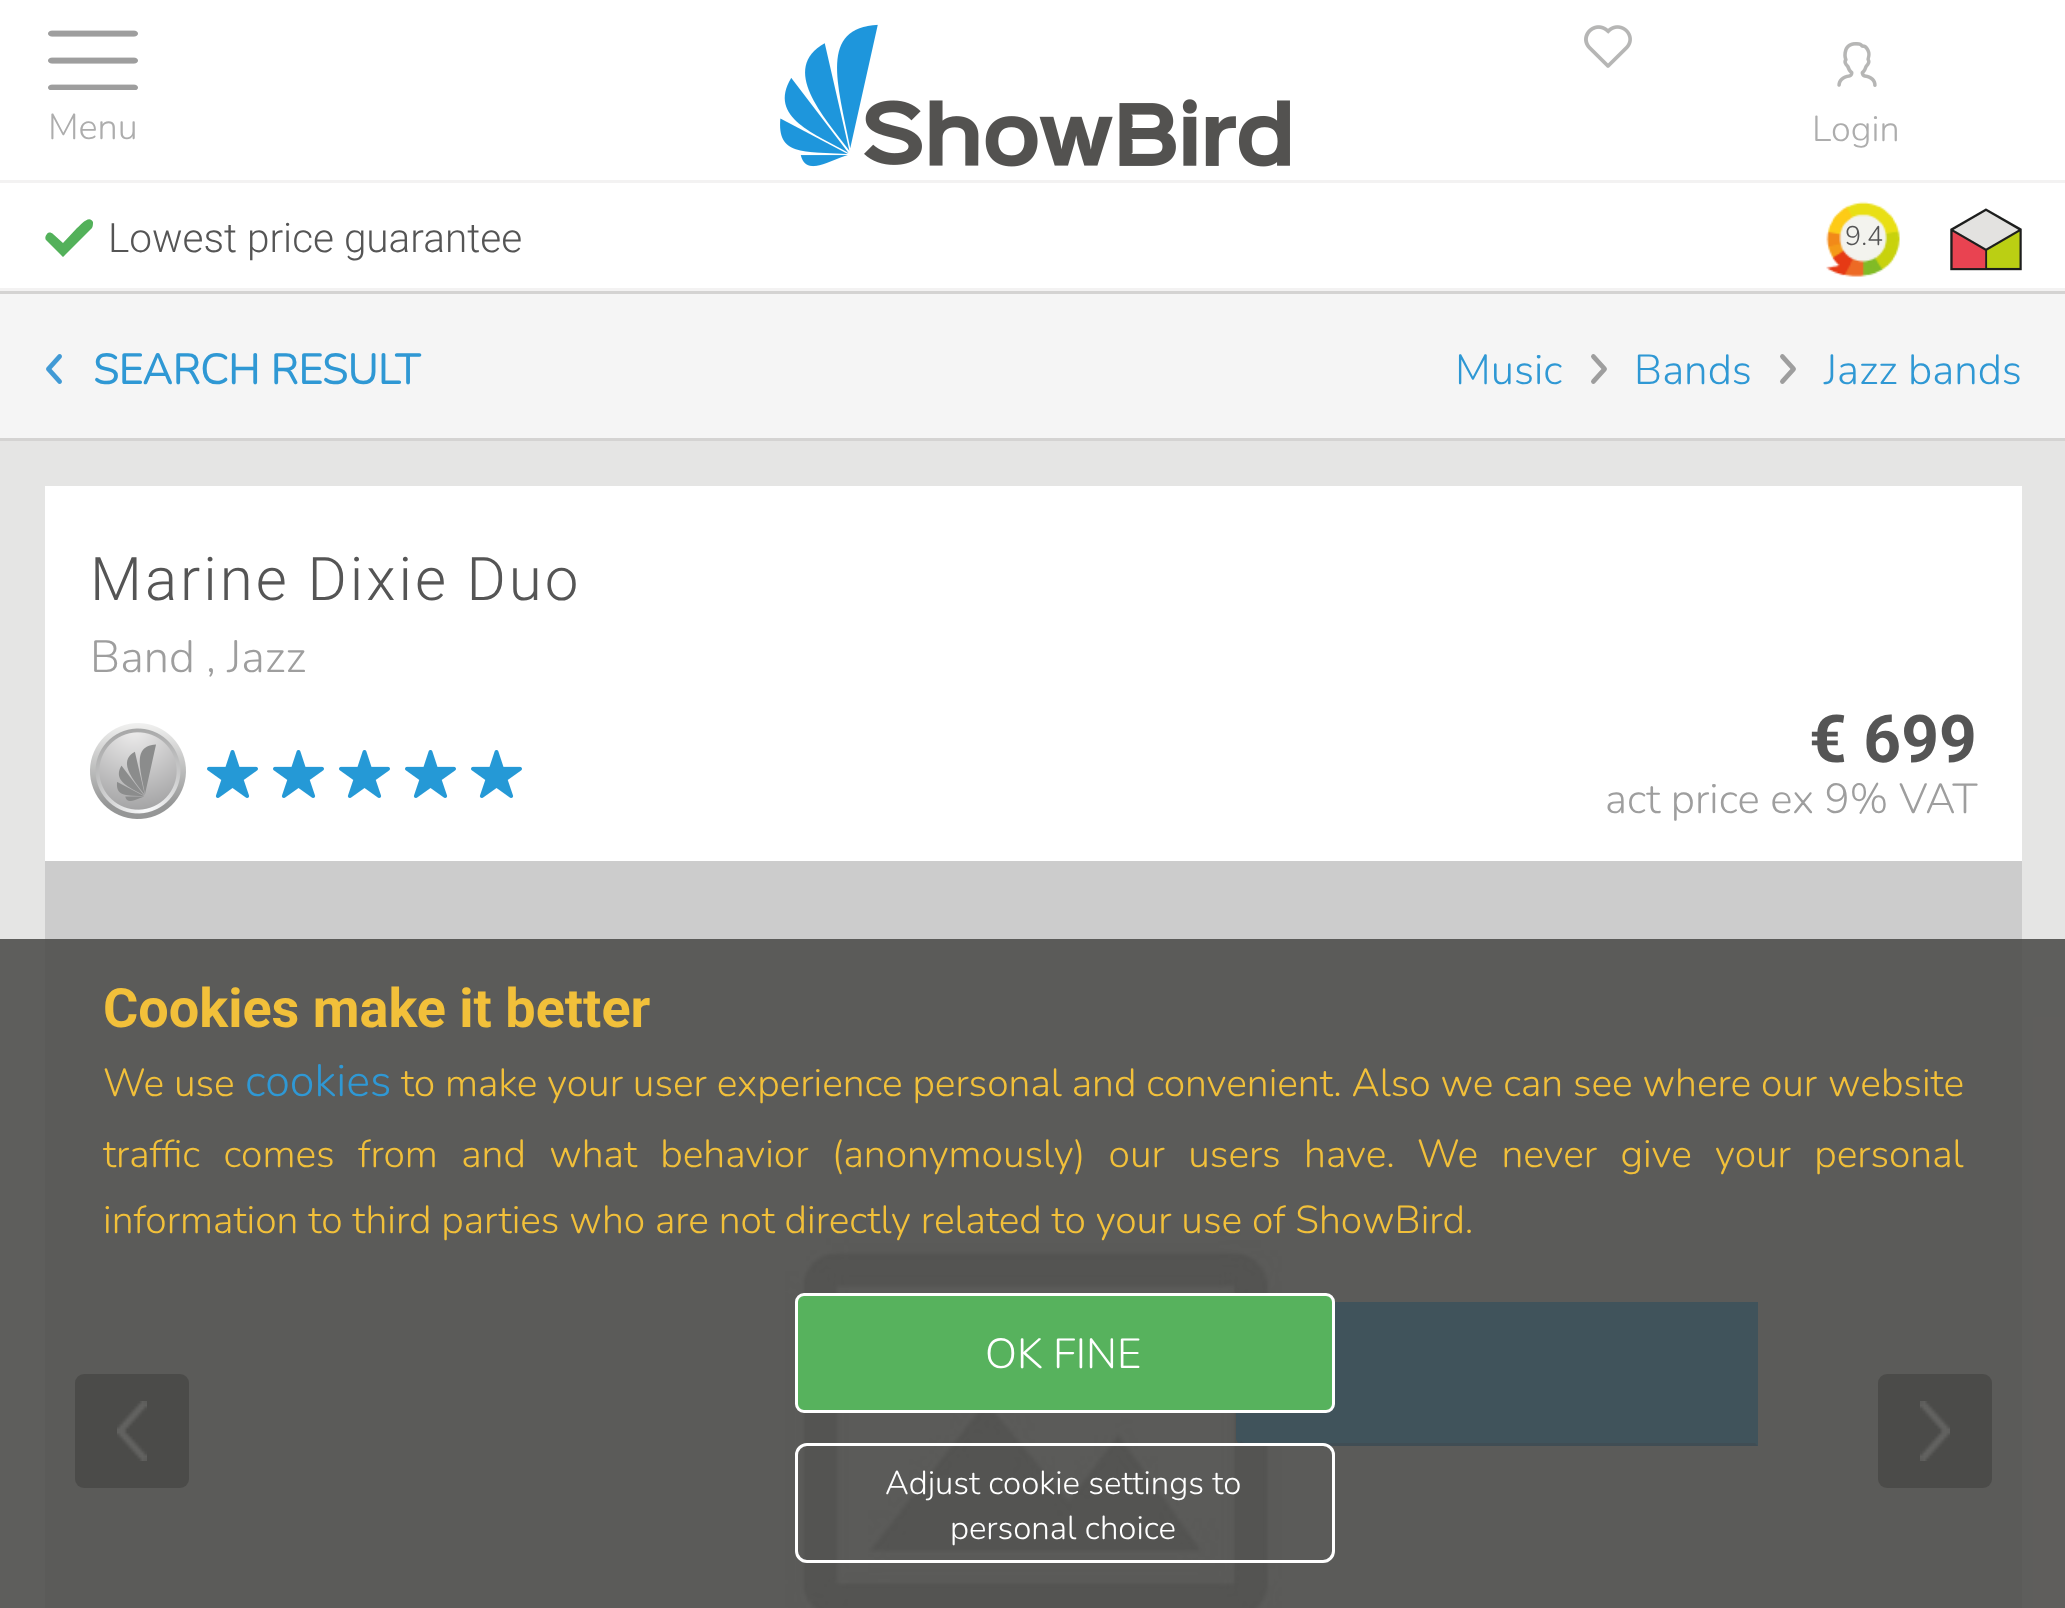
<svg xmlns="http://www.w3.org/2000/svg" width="2065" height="1608">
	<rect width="100%" height="100%" fill="#E5E5E4" />
	<rect x="0" y="0" width="2065" height="180" fill="#FFFFFF" />
	<image x="48" y="30" width="90" height="60" href="assets/img1.png" />
	<text x="48" y="139" font-family="Nunito" font-size="36" font-weight="200" fill="#ADADAD">Menu</text>
	<image x="780" y="24" width="510" height="143" href="assets/img2.png" />
	<image x="1584" y="25" width="48" height="43" href="assets/img3.png" />
	<image x="1837" y="42" width="40" height="45" href="assets/img4.png" />
	<text x="1812" y="141" font-family="Nunito" font-size="36" font-weight="200" fill="#ADADAD">Login</text>
	<rect x="0" y="183" width="2065" height="105" fill="#FFFFFF" />
	<rect x="0" y="180" width="2065" height="3" fill="#F3F2F2" />
	<rect x="0" y="288" width="2065" height="3" fill="#F3F2F2" />
	<path d="M92 228L63 257L46 240C45 239 45 236 47 234C48 232 51 232 53 234L63 243L77 228C80 226 89 214 93 222C93 224 93 226 92 228Z" fill="#53B15A" />
	<text x="108" y="252" font-family="Roboto" font-size="40.5" font-weight="300" fill="#555555">Lowest price guarantee</text>
	<image x="1826" y="201" width="74" height="76" href="assets/img5.png" />
	<text x="1845" y="245" font-family="Nunito" font-size="27" font-weight="200" fill="#555555">9.4</text>
	<image x="1950" y="208" width="72" height="63" href="assets/img6.png" />
	<rect x="0" y="294" width="2065" height="144" fill="#F5F5F5" />
	<rect x="0" y="291" width="2065" height="3" fill="#D4D3D2" />
	<rect x="0" y="438" width="2065" height="3" fill="#D4D3D2" />
	<image x="46" y="354" width="16" height="30" href="assets/img7.png" />
	<text x="93" y="384" font-family="Nunito" font-size="42" font-weight="700" fill="#2F98D4">SEARCH RESULT</text>
	<text x="1455" y="384" font-family="Nunito" font-size="42" font-weight="200" fill="#2F98D4">Music</text>
	<image x="1591" y="354" width="16" height="30" href="assets/img8.png" />
	<text x="1634" y="384" font-family="Nunito" font-size="42" font-weight="200" fill="#2F98D4">Bands</text>
	<image x="1780" y="354" width="16" height="30" href="assets/img8.png" />
	<text x="1824" y="384" font-family="Nunito" font-size="42" font-weight="200" fill="#2F98D4">Jazz bands</text>
	<rect x="45" y="486" width="1977" height="375" fill="#FFFFFF" />
	<text x="90" y="600" font-family="Roboto" font-size="60" font-weight="300" letter-spacing="3" fill="#555555">Marine Dixie Duo</text>
	<text x="90" y="672" font-family="Nunito" font-size="45" font-weight="200" fill="#9E9E9E">Band , Jazz</text>
	<image x="90" y="723" width="96" height="96" href="assets/img9.png" />
	<image x="207" y="750" width="51" height="48" href="assets/img10.png" />
	<image x="273" y="750" width="51" height="48" href="assets/img10.png" />
	<image x="339" y="750" width="51" height="48" href="assets/img10.png" />
	<image x="405" y="750" width="51" height="48" href="assets/img10.png" />
	<image x="471" y="750" width="51" height="48" href="assets/img10.png" />
	<text x="1809" y="762" font-family="Roboto" font-size="66" font-weight="700" fill="#555555">€ 699</text>
	<text x="1605" y="813" font-family="Nunito" font-size="42" font-weight="200" fill="#9E9E9E">act price ex 9% VAT</text>
	<image x="45" y="861" width="1977" height="747" href="assets/img11.png" />
	<rect x="75" y="1374" width="114" height="114" rx="9" fill="#666666" />
	<image x="117" y="1401" width="30" height="60" href="assets/img12.png" />
	<rect x="1878" y="1374" width="114" height="114" rx="9" fill="#666666" />
	<image x="1920" y="1401" width="30" height="60" href="assets/img13.png" />
	<path d="M1245 1302H1758V1446H1245C1240 1446 1236 1442 1236 1437V1311C1236 1306 1240 1302 1245 1302Z" fill="#1D9BDC" />
	<path d="M1245 1302C1242 1302 1240 1303 1239 1305L1241 1307C1242 1306 1244 1305 1245 1305H1755L1758 1302Z" fill="#1D9BDC" />
	<path d="M1758 1446L1755 1443H1245C1244 1443 1242 1442 1241 1441L1239 1443C1240 1445 1242 1446 1245 1446Z" fill="#2072AC" />
	<path d="M1236 1311V1437C1236 1440 1237 1442 1239 1443L1241 1441L1239 1438V1310L1241 1307L1239 1305C1237 1306 1236 1308 1236 1311Z" fill="#1D9BDC" />
	<rect x="0" y="939" width="2065" height="669" fill="#474644" fill-opacity="0.85" />
	<text x="103" y="1027" font-family="Roboto" font-size="54" font-weight="700" fill="#F2C03A">Cookies make it better</text>
	<text x="103" y="1096" font-family="Nunito" font-size="39" font-weight="200" fill="#F2C03A">We use</text>
	<text x="245" y="1096" font-family="Nunito" font-size="45" font-weight="200" fill="#2F98D4">cookies</text>
	<g font-family="Nunito" font-size="39" font-weight="200" fill="#F2C03A">
		<text x="401" y="1096">to make your user experience personal and convenient. Also we can see where our</text>
		<text x="1828" y="1096">website</text>
		<text x="103" y="1167" word-spacing="13.5">traffic comes from and what behavior (anonymously) our users have.</text>
		<text x="1417" y="1167" word-spacing="13.5">We never give your personal</text>
		<text x="103" y="1233">information to third parties who are not directly related to your use of ShowBird.</text>
	</g>
	<rect x="796.5" y="1294.5" width="537" height="117" rx="7.5" fill="#57B25D" stroke="#FFFFFF" stroke-width="3" />
	<text x="985" y="1368" font-family="Nunito" font-size="42" font-weight="200" fill="#FFFFFF">OK FINE</text>
	<rect x="796.5" y="1444.5" width="537" height="117" rx="10.5" fill="none" stroke="#FFFFFF" stroke-width="3" />
	<g font-family="Nunito" font-size="33" font-weight="200" fill="#FFFFFF">
		<text x="885" y="1494">Adjust cookie settings to</text>
		<text x="950" y="1539">personal choice</text>
	</g>
</svg>
